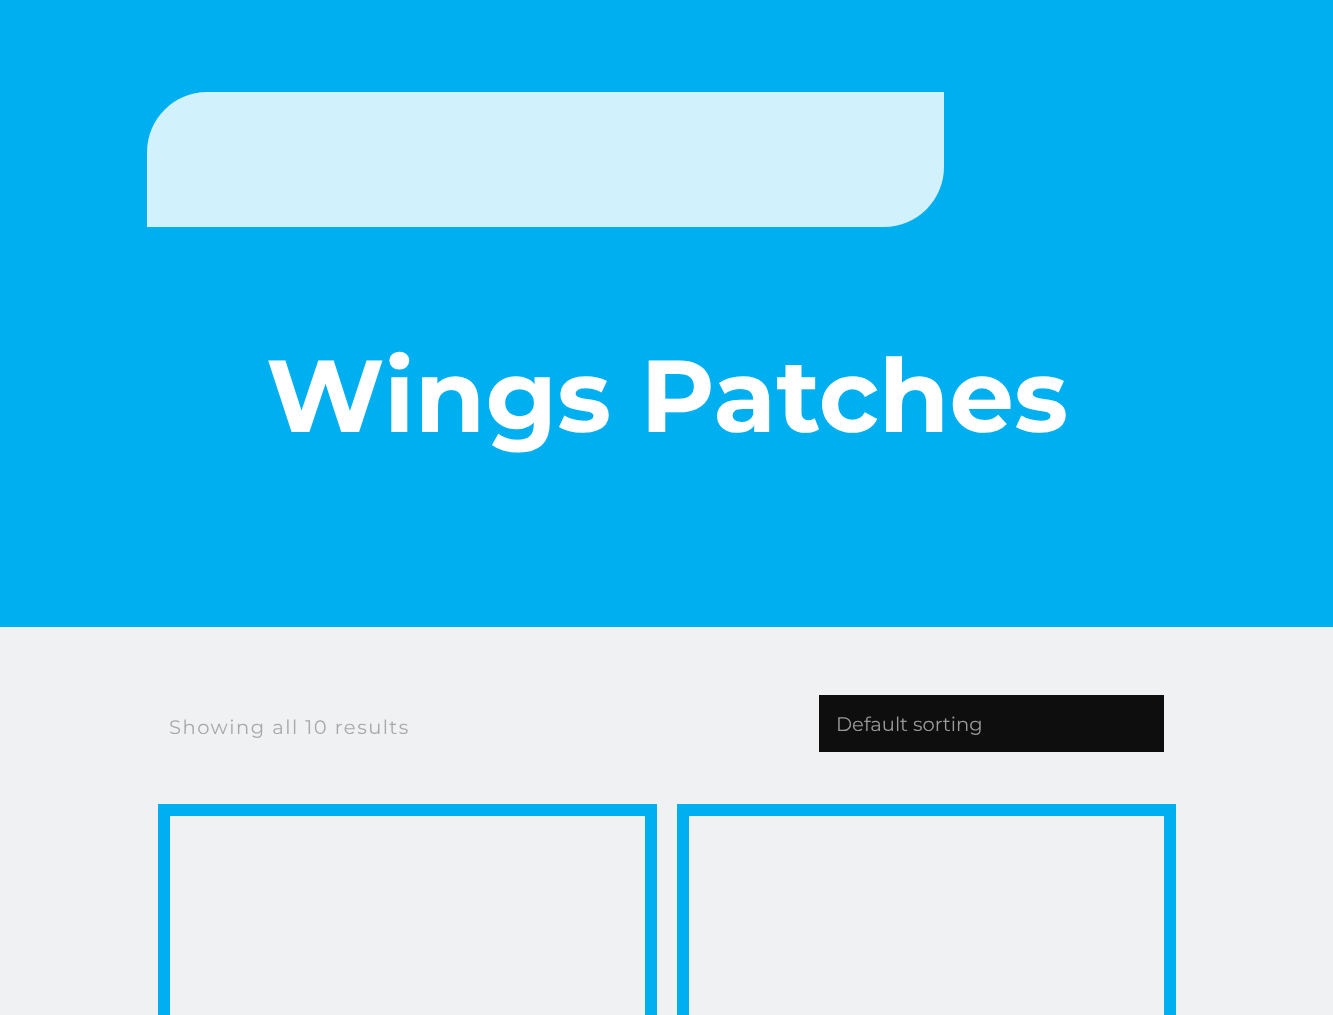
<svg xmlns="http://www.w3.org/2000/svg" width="1333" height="1015">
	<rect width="100%" height="100%" fill="#F0F1F2" />
	<rect x="0" y="0" width="1333" height="627" fill="#00AFEF" />
	<path d="M207 92H944V167C944 200 917 227 884 227H147V152C147 119 174 92 207 92Z" fill="#D1F1FC" />
	<text x="266" y="432" font-family="Montserrat" font-size="102" font-weight="700" fill="#FFFFFF">Wings Patches</text>
	<text x="169" y="734" font-family="Montserrat" font-size="19.5" letter-spacing="1.5" fill="#A8A8A8">Showing all 10 results</text>
	<rect x="819" y="695" width="345" height="57" fill="#0E0E0F" />
	<text x="836" y="731" font-family="Montserrat" font-size="19.5" fill="#9A9A9A">Default sorting</text>
	<rect x="164" y="810" width="487" height="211" fill="none" stroke="#00AFEF" stroke-width="12" />
	<rect x="683" y="810" width="487" height="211" fill="none" stroke="#00AFEF" stroke-width="12" />
</svg>
